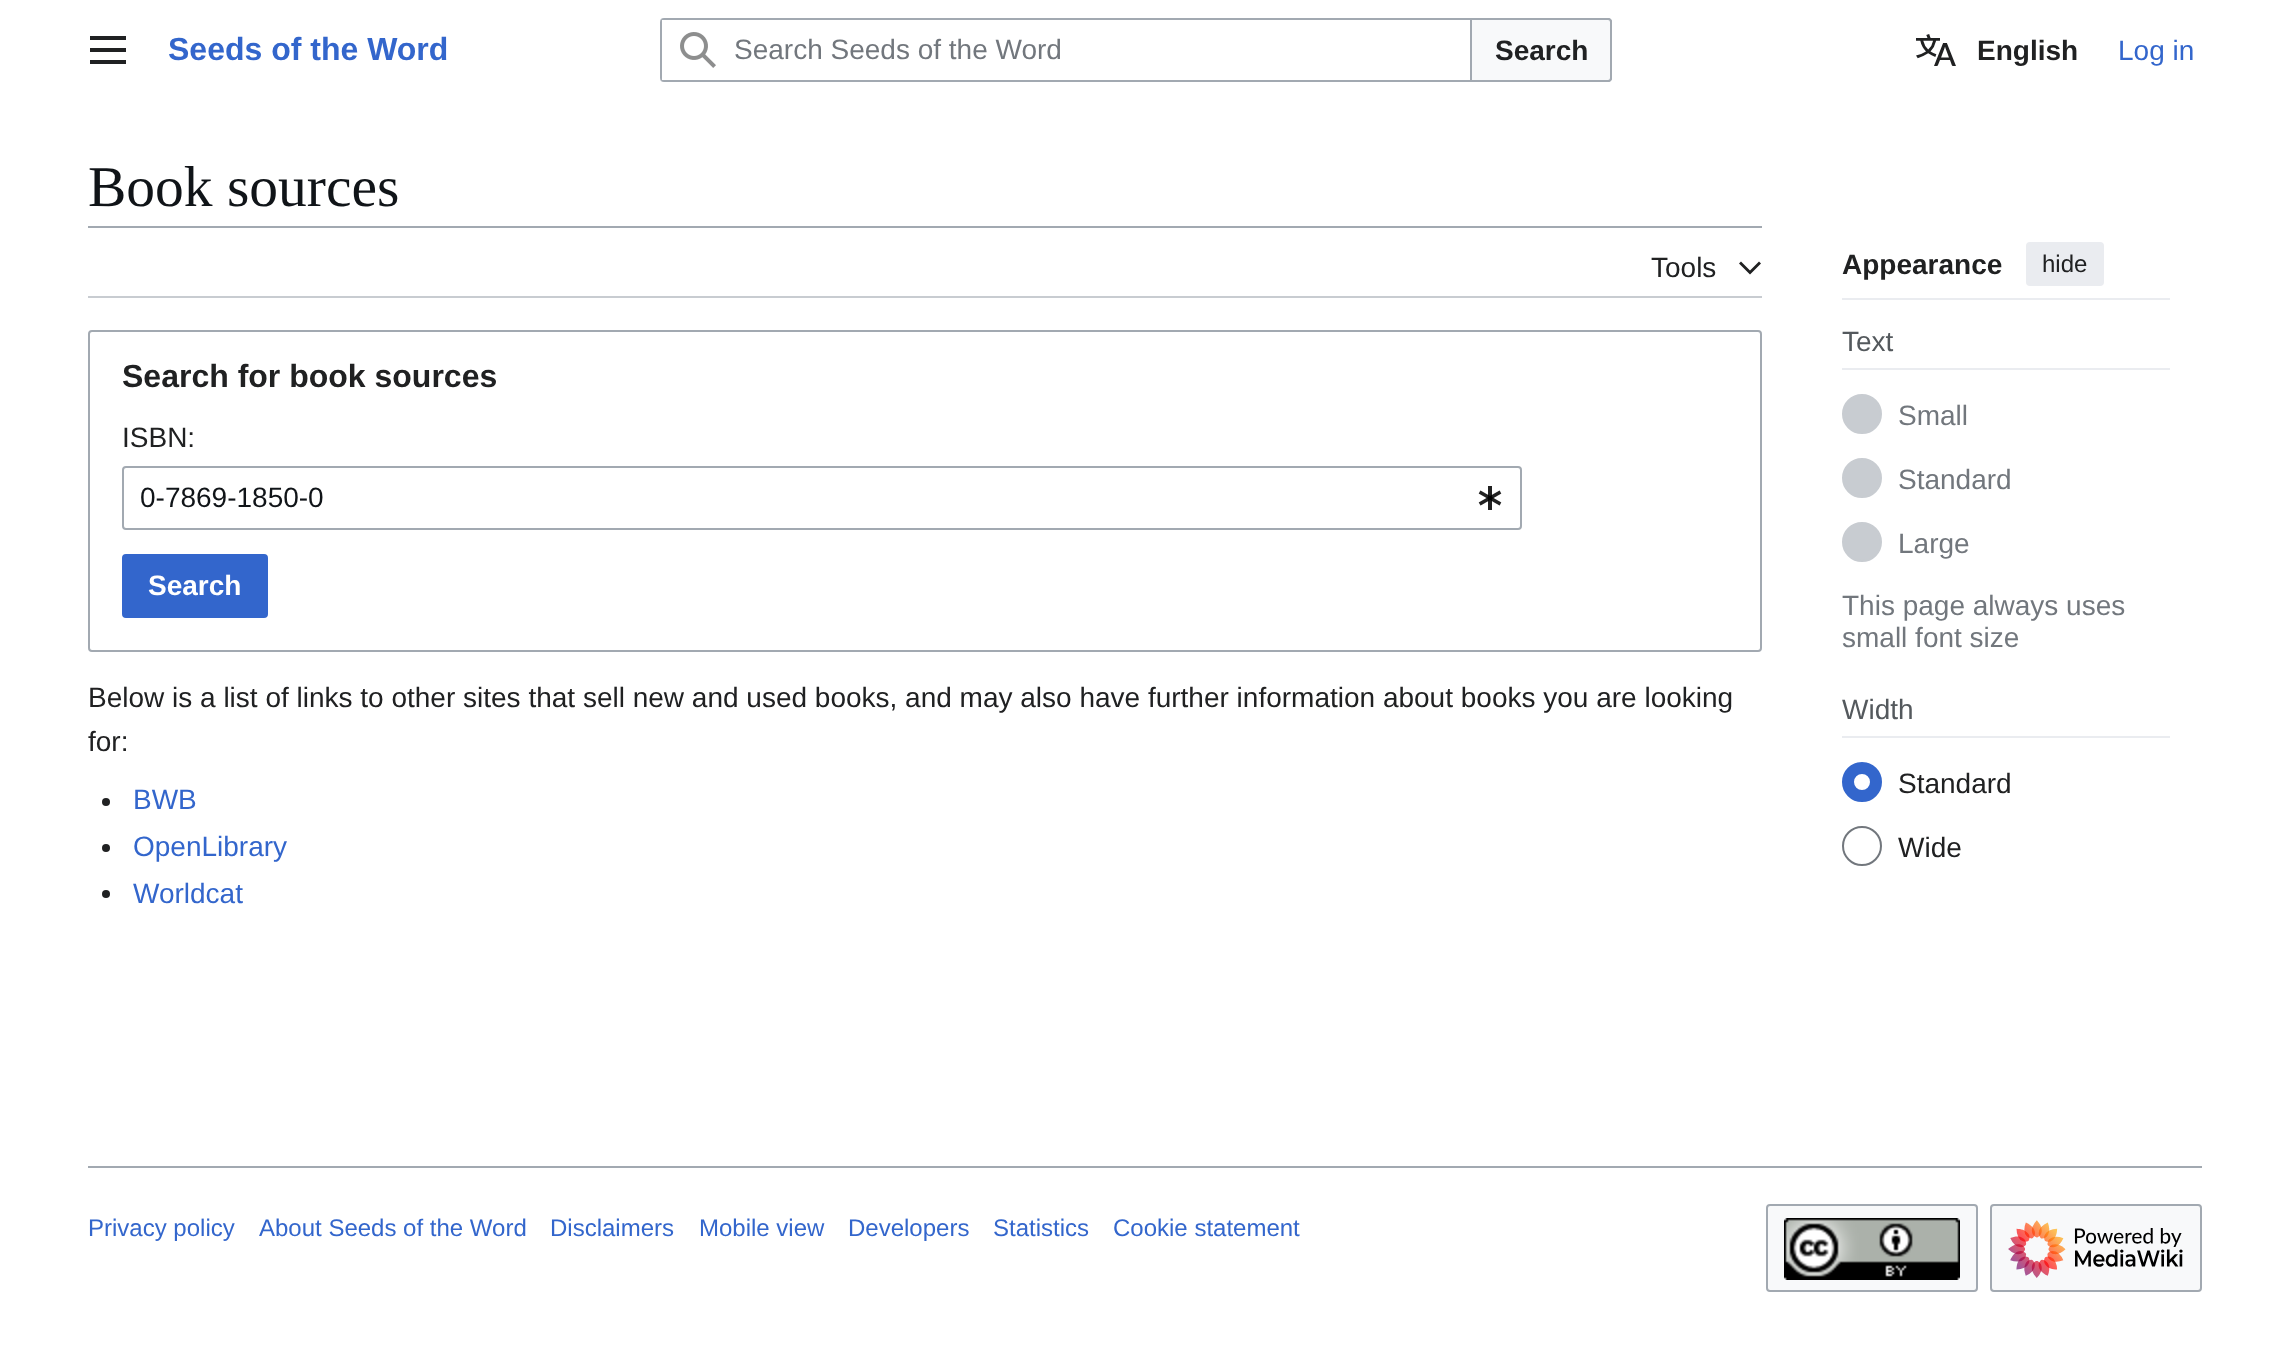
<svg xmlns="http://www.w3.org/2000/svg" width="2290" height="1357">
	<rect width="100%" height="100%" fill="#FFFFFF" />
	<image x="90" y="36" width="36" height="28" href="assets/img1.png" />
	<text x="168" y="60" font-family="Liberation Sans" font-size="32" font-weight="700" fill="#3366CC">Seeds of the Word</text>
	<rect x="661" y="19" width="950" height="62" rx="3" fill="none" stroke="#A2A9B1" stroke-width="2" />
	<path d="M1471 19H1608C1609.5 19 1611 20.5 1611 22V78C1611 79.5 1609.5 81 1608 81H1471Z" fill="#F8F9FA" stroke="#A2A9B1" stroke-width="2" />
	<path d="M664 18H1472V82H664C662 82 660 80 660 78V22C660 20 662 18 664 18Z" fill="#FFFFFF" />
	<path d="M664 18C662 18 660 20 660 22V78C660 80 662 82 664 82H1472V18ZM662 20V80H1470V20Z" fill="#A2A9B1" fill-rule="evenodd" />
	<image x="680" y="32" width="36" height="36" href="assets/img2.png" />
	<text x="734" y="59" font-family="Liberation Sans" font-size="28" fill="#72777D">Search Seeds of the Word</text>
	<text x="1495" y="60" font-family="Liberation Sans" font-size="28" font-weight="700" fill="#202122">Search</text>
	<image x="1916" y="34" width="40" height="32" href="assets/img3.png" />
	<text x="1977" y="60" font-family="Liberation Sans" font-size="28" font-weight="700" fill="#202122">English</text>
	<text x="2118" y="60" font-family="Liberation Sans" font-size="28" fill="#3366CC">Log in</text>
	<text x="88" y="206" font-family="Liberation Serif" font-size="57.5" fill="#101418">Book sources</text>
	<rect x="88" y="226" width="1674" height="2" fill="#A2A9B1" />
	<rect x="88" y="296" width="1674" height="2" fill="#C8CCD1" />
	<text x="1651" y="277" font-family="Liberation Sans" font-size="28" fill="#202122">Tools</text>
	<path d="M1759 261.5L1750 270.5L1741 261.5L1739 263.5L1750 274.5L1761 263.5Z" fill="#202122" />
	<rect x="1842" y="298" width="328" height="2" fill="#EAECF0" />
	<text x="1842" y="274" font-family="Liberation Sans" font-size="28" font-weight="700" fill="#202122">Appearance</text>
	<rect x="2026" y="242" width="78" height="44" rx="4" fill="#EAECF0" />
	<text x="2042" y="272" font-family="Liberation Sans" font-size="24" fill="#202122">hide</text>
	<rect x="1842" y="368" width="328" height="2" fill="#EAECF0" />
	<text x="1842" y="351" font-family="Liberation Sans" font-size="28" fill="#54595D">Text</text>
	<circle cx="1862" cy="414" r="19" fill="#C8CCD1" stroke="#C8CCD1" stroke-width="2" />
	<text x="1898" y="425" font-family="Liberation Sans" font-size="28" fill="#72777D">Small</text>
	<circle cx="1862" cy="478" r="19" fill="#C8CCD1" stroke="#C8CCD1" stroke-width="2" />
	<text x="1898" y="489" font-family="Liberation Sans" font-size="28" fill="#72777D">Standard</text>
	<circle cx="1862" cy="542" r="19" fill="#C8CCD1" stroke="#C8CCD1" stroke-width="2" />
	<g font-family="Liberation Sans" font-size="28" fill="#72777D">
		<text x="1898" y="553">Large</text>
		<text x="1842" y="615">This page always uses</text>
		<text x="1842" y="647">small font size</text>
	</g>
	<rect x="1842" y="736" width="328" height="2" fill="#EAECF0" />
	<text x="1842" y="719" font-family="Liberation Sans" font-size="28" fill="#54595D">Width</text>
	<circle cx="1862" cy="782" r="14" fill="none" stroke="#3366CC" stroke-width="12" />
	<text x="1898" y="793" font-family="Liberation Sans" font-size="28" fill="#202122">Standard</text>
	<circle cx="1862" cy="846" r="19" fill="none" stroke="#72777D" stroke-width="2" />
	<text x="1898" y="857" font-family="Liberation Sans" font-size="28" fill="#202122">Wide</text>
	<rect x="89" y="331" width="1672" height="320" rx="3" fill="none" stroke="#A2A9B1" stroke-width="2" />
	<text x="122" y="387" font-family="Liberation Sans" font-size="32" font-weight="700" fill="#202122">Search for book sources</text>
	<text x="122" y="447" font-family="Liberation Sans" font-size="28" fill="#202122">ISBN:</text>
	<rect x="123" y="467" width="1398" height="62" rx="3" fill="none" stroke="#A2A9B1" stroke-width="2" />
	<text x="140" y="507" font-family="Liberation Sans" font-size="28" fill="#101418">0-7869-1850-0</text>
	<image x="1478" y="486" width="24" height="24" href="assets/img4.png" />
	<rect x="123" y="555" width="144" height="62" rx="3" fill="#3366CC" stroke="#3366CC" stroke-width="2" />
	<text x="148" y="595" font-family="Liberation Sans" font-size="28" font-weight="700" fill="#FFFFFF">Search</text>
	<g font-family="Liberation Sans" font-size="28" fill="#202122">
		<text x="88" y="707">Below is a list of links to other sites that sell new and used books, and may also have further information about books you are looking</text>
		<text x="88" y="751">for:</text>
	</g>
	<circle cx="106" cy="802" r="4" fill="#202122" />
	<text x="133" y="809" font-family="Liberation Sans" font-size="28" fill="#3366CC">BWB</text>
	<circle cx="106" cy="848" r="4" fill="#202122" />
	<text x="133" y="856" font-family="Liberation Sans" font-size="28" fill="#3366CC">OpenLibrary</text>
	<circle cx="106" cy="894" r="4" fill="#202122" />
	<text x="133" y="903" font-family="Liberation Sans" font-size="28" fill="#3366CC">Worldcat</text>
	<rect x="88" y="1166" width="2114" height="2" fill="#A2A9B1" />
	<g font-family="Liberation Sans" font-size="24" fill="#3366CC">
		<text x="88" y="1236">Privacy policy</text>
		<text x="259" y="1236">About Seeds of the Word</text>
		<text x="550" y="1236">Disclaimers</text>
		<text x="699" y="1236">Mobile view</text>
		<text x="848" y="1236">Developers</text>
		<text x="993" y="1236">Statistics</text>
		<text x="1113" y="1236">Cookie statement</text>
	</g>
	<rect x="1767" y="1205" width="210" height="86" rx="3" fill="#F8F9FA" stroke="#A2A9B1" stroke-width="2" />
	<image x="1784" y="1218" width="176" height="62" href="assets/img5.png" />
	<rect x="1991" y="1205" width="210" height="86" rx="3" fill="#F8F9FA" stroke="#A2A9B1" stroke-width="2" />
	<image x="2008" y="1220" width="175" height="58" href="assets/img6.png" />
</svg>
